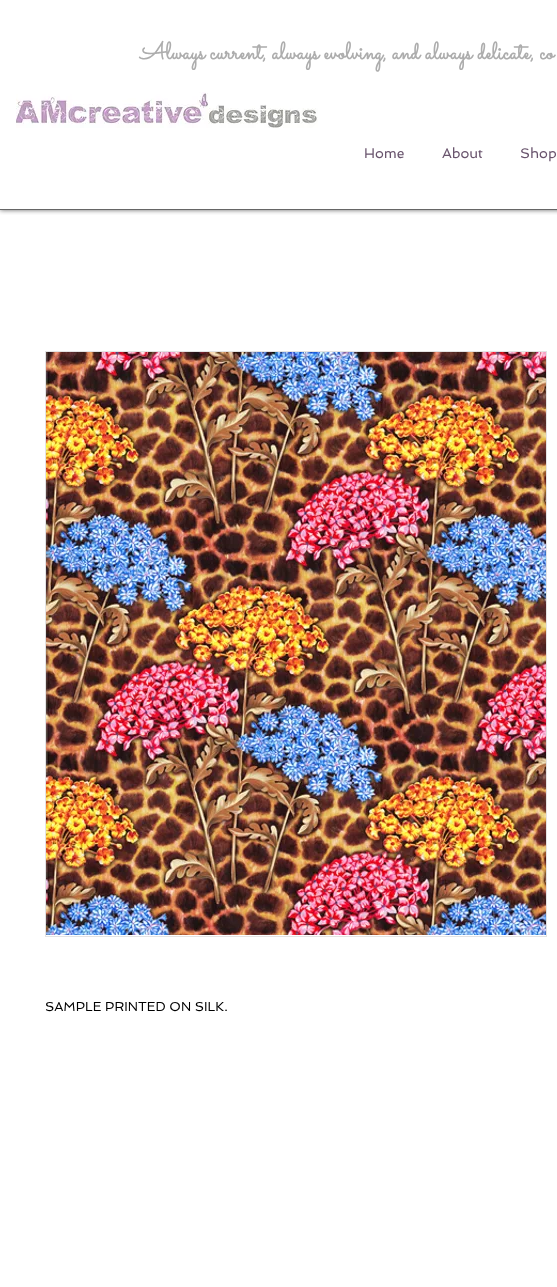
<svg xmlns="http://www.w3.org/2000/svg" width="557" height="1287">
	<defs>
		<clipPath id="clip1"><rect x="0" y="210" width="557" height="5" /></clipPath>
	</defs>
	<rect width="100%" height="100%" fill="#FFFFFF" />
	<g clip-path="url(#clip1)">
		<rect x="0" y="0" width="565" height="210" fill="#000000" fill-opacity="0.6" filter="blur(2.5px)" />
	</g>
	<rect x="0" y="209" width="557" height="1" fill="#666666" />
	<text x="140" y="59" font-family="Sacramento" font-size="24" font-weight="700" fill="#ADADAD">Always current, always evolving, and always delicate, co</text>
	<image x="16" y="92" width="302" height="36" href="assets/img1.png" />
	<g font-family="Spinnaker" font-size="14" fill="#69546D">
		<text x="364" y="158">Home</text>
		<text x="442" y="158">About</text>
		<text x="520" y="158">Shop</text>
	</g>
	<rect x="45.5" y="351.5" width="501" height="585" fill="none" stroke="#E3E3E3" />
	<image x="46" y="352" width="500" height="583" href="assets/img2.png" />
	<text x="45" y="1011" font-family="Spinnaker" font-size="13" fill="#000000">SAMPLE PRINTED ON SILK.</text>
</svg>
